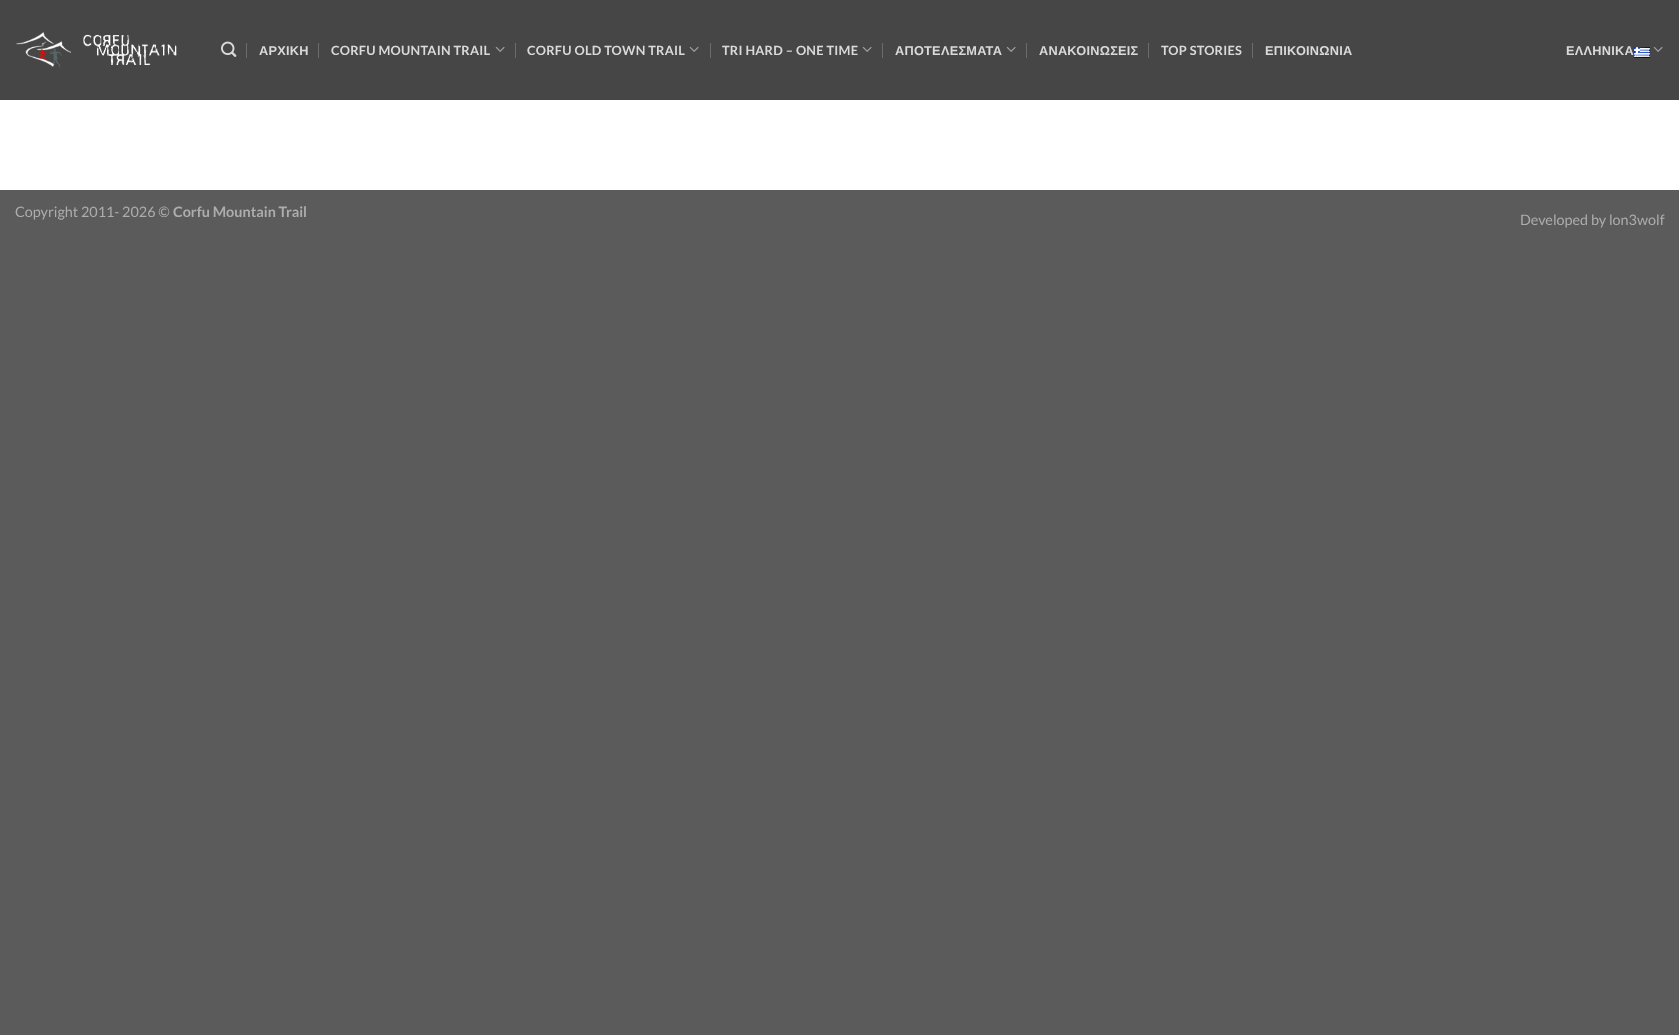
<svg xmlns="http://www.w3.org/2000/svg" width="1679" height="1035">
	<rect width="100%" height="100%" fill="#5B5B5B" />
	<rect x="0" y="100" width="1679" height="90" fill="#FFFFFF" />
	<rect x="0" y="0" width="1679" height="100" fill="#464646" />
	<image x="16" y="32" width="161" height="36" href="assets/img1.png" />
	<image x="221" y="41" width="16" height="16" href="assets/img2.png" />
	<rect x="246" y="43" width="1" height="15" fill="#6B6B6B" />
	<text x="259" y="55" font-family="Liberation Sans" font-size="12.75" font-weight="700" letter-spacing="0.25" fill="#DADADA">ΑΡΧΙΚΗ</text>
	<rect x="318" y="43" width="1" height="15" fill="#6B6B6B" />
	<text x="331" y="55" font-family="Lato" font-size="12.75" font-weight="700" letter-spacing="0.25" fill="#DADADA">CORFU MOUNTAIN TRAIL</text>
	<image x="495" y="46" width="10" height="6" href="assets/img3.png" />
	<rect x="515" y="43" width="1" height="15" fill="#6B6B6B" />
	<text x="527" y="55" font-family="Lato" font-size="12.75" font-weight="700" letter-spacing="0.25" fill="#DADADA">CORFU OLD TOWN TRAIL</text>
	<image x="689" y="46" width="10" height="6" href="assets/img3.png" />
	<rect x="710" y="43" width="1" height="15" fill="#6B6B6B" />
	<text x="722" y="55" font-family="Lato" font-size="12.75" font-weight="700" letter-spacing="0.25" fill="#DADADA">TRI HARD – ONE TIME</text>
	<image x="862" y="46" width="10" height="6" href="assets/img3.png" />
	<rect x="882" y="43" width="1" height="15" fill="#6B6B6B" />
	<text x="895" y="55" font-family="Liberation Sans" font-size="12.75" font-weight="700" letter-spacing="0.25" fill="#DADADA">ΑΠΟΤΕΛΕΣΜΑΤΑ</text>
	<image x="1006" y="46" width="10" height="6" href="assets/img3.png" />
	<rect x="1026" y="43" width="1" height="15" fill="#6B6B6B" />
	<text x="1039" y="55" font-family="Liberation Sans" font-size="12.75" font-weight="700" letter-spacing="0.25" fill="#DADADA">ΑΝΑΚΟΙΝΩΣΕΙΣ</text>
	<rect x="1148" y="43" width="1" height="15" fill="#6B6B6B" />
	<text x="1161" y="55" font-family="Lato" font-size="12.75" font-weight="700" letter-spacing="0.25" fill="#DADADA">TOP STORIES</text>
	<rect x="1252" y="43" width="1" height="15" fill="#6B6B6B" />
	<g font-family="Liberation Sans" font-size="12.75" font-weight="700" letter-spacing="0.25" fill="#DADADA">
		<text x="1265" y="55">ΕΠΙΚΟΙΝΩΝΙΑ</text>
		<text x="1566" y="55">ΕΛΛΗΝΙΚΑ</text>
	</g>
	<image x="1634" y="47" width="16" height="11" href="assets/img4.png" />
	<image x="1653" y="46" width="10" height="6" href="assets/img3.png" />
	<text x="15" y="217" font-family="Lato" font-size="14.4" fill="#ADADAD">Copyright 2011- 2026 ©</text>
	<text x="173" y="217" font-family="Lato" font-size="14.4" font-weight="700" fill="#ADADAD">Corfu Mountain Trail</text>
	<text x="1520" y="225" font-family="Lato" font-size="14.4" fill="#ADADAD">Developed by lon3wolf</text>
</svg>
